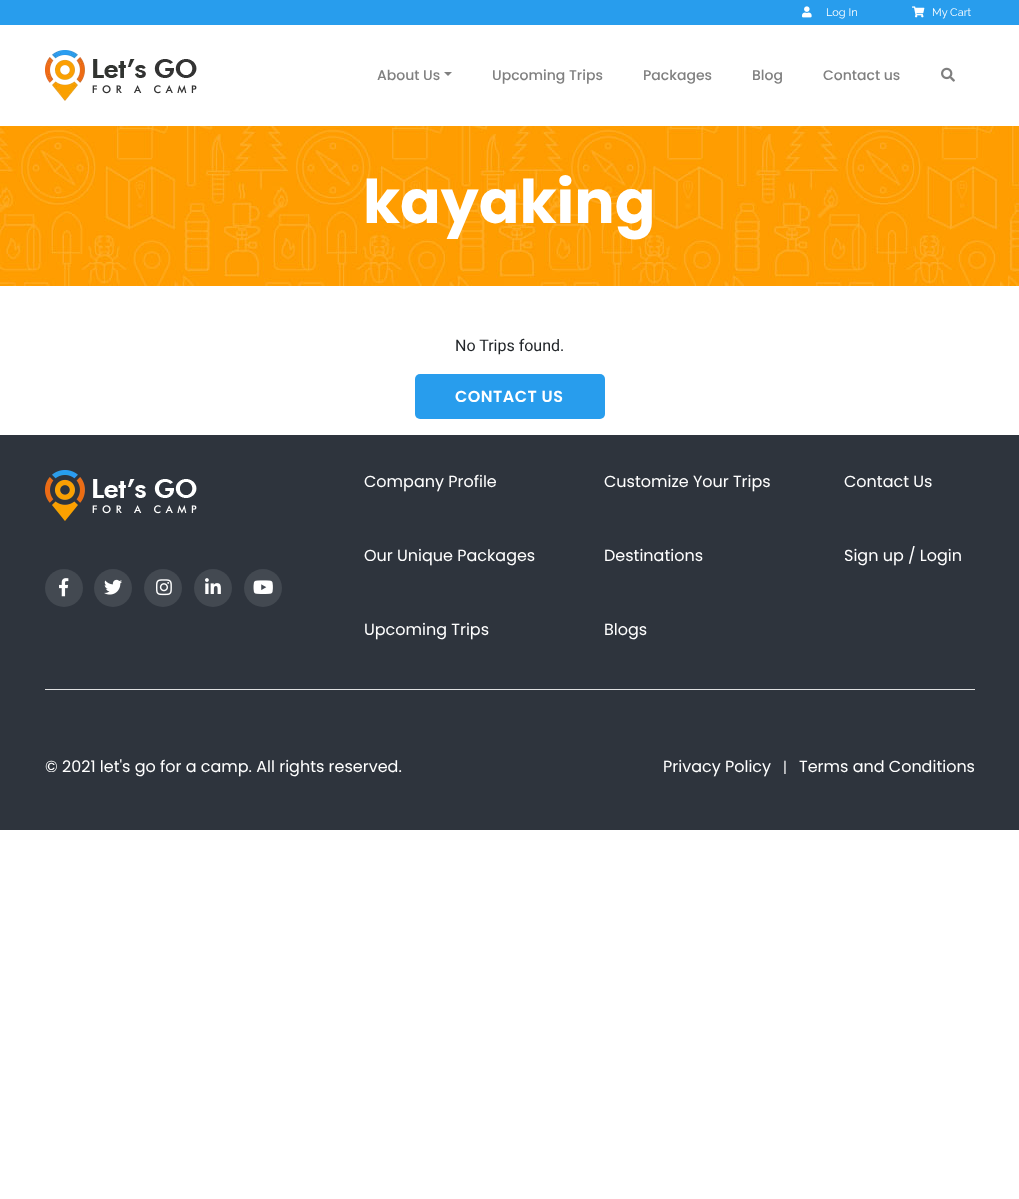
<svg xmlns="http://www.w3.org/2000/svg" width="1019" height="1199">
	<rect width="100%" height="100%" fill="#FFFFFF" />
	<rect x="0" y="0" width="1019" height="25" fill="#289DED" />
	<image x="802" y="6" width="10" height="12" href="assets/img1.png" />
	<text x="826" y="16" font-family="Raleway" font-size="11" fill="#FFFFFF">Log In</text>
	<image x="912" y="6" width="13" height="12" href="assets/img2.png" />
	<text x="932" y="16" font-family="Raleway" font-size="11" fill="#FFFFFF">My Cart</text>
	<image x="45" y="50" width="152" height="51" href="assets/img3.png" />
	<text x="377" y="80" font-family="Poppins" font-size="14" font-weight="500" fill="#808080">About Us</text>
	<path d="M444 72H452L448 76Z" fill="#808080" />
	<g font-family="Poppins" font-size="14" font-weight="500" fill="#808080">
		<text x="492" y="80">Upcoming Trips</text>
		<text x="643" y="80">Packages</text>
		<text x="752" y="80">Blog</text>
		<text x="823" y="80">Contact us</text>
	</g>
	<image x="941" y="67" width="14" height="15" href="assets/img4.png" />
	<image x="0" y="126" width="1019" height="160" href="assets/img5.png" />
	<text x="363" y="223" font-family="Poppins" font-size="60" font-weight="700" fill="#FFFFFF">kayaking</text>
	<text x="455" y="351" font-family="Roboto" font-size="16" fill="#212529">No Trips found.</text>
	<rect x="415" y="374" width="190" height="45" rx="5" fill="#289DED" />
	<text x="455" y="402" font-family="Poppins" font-size="16" font-weight="600" letter-spacing="0.5" fill="#FFFFFF">CONTACT US</text>
	<rect x="0" y="435" width="1019" height="395" fill="#2E343D" />
	<image x="45" y="470" width="152" height="51" href="assets/img6.png" />
	<circle cx="64" cy="588" r="19" fill="#434951" />
	<image x="59" y="578" width="10" height="19" href="assets/img7.png" />
	<circle cx="113" cy="588" r="19" fill="#434951" />
	<image x="104" y="579" width="18" height="16" href="assets/img8.png" />
	<circle cx="163" cy="588" r="19" fill="#434951" />
	<image x="156" y="579" width="16" height="17" href="assets/img9.png" />
	<circle cx="213" cy="588" r="19" fill="#434951" />
	<image x="205" y="578" width="16" height="16" href="assets/img10.png" />
	<circle cx="263" cy="588" r="19" fill="#434951" />
	<image x="253" y="580" width="20" height="14" href="assets/img11.png" />
	<g font-family="Poppins" font-size="16" fill="#FFFFFF">
		<text x="364" y="487">Company Profile</text>
		<text x="364" y="561">Our Unique Packages</text>
		<text x="364" y="635">Upcoming Trips</text>
		<text x="604" y="487">Customize Your Trips</text>
		<text x="604" y="561">Destinations</text>
		<text x="604" y="635">Blogs</text>
		<text x="844" y="487">Contact Us</text>
		<text x="844" y="561">Sign up / Login</text>
	</g>
	<rect x="45" y="689" width="930" height="1" fill="#DFE0E1" />
	<g font-family="Poppins" font-size="16" fill="#FFFFFF">
		<text x="45" y="772">© 2021 let's go for a camp. All rights reserved.</text>
		<text x="663" y="772">Privacy Policy</text>
	</g>
	<text x="783" y="772" font-family="Roboto" font-size="16" fill="#FFFFFF">|</text>
	<text x="799" y="772" font-family="Poppins" font-size="16" fill="#FFFFFF">Terms and Conditions</text>
</svg>
